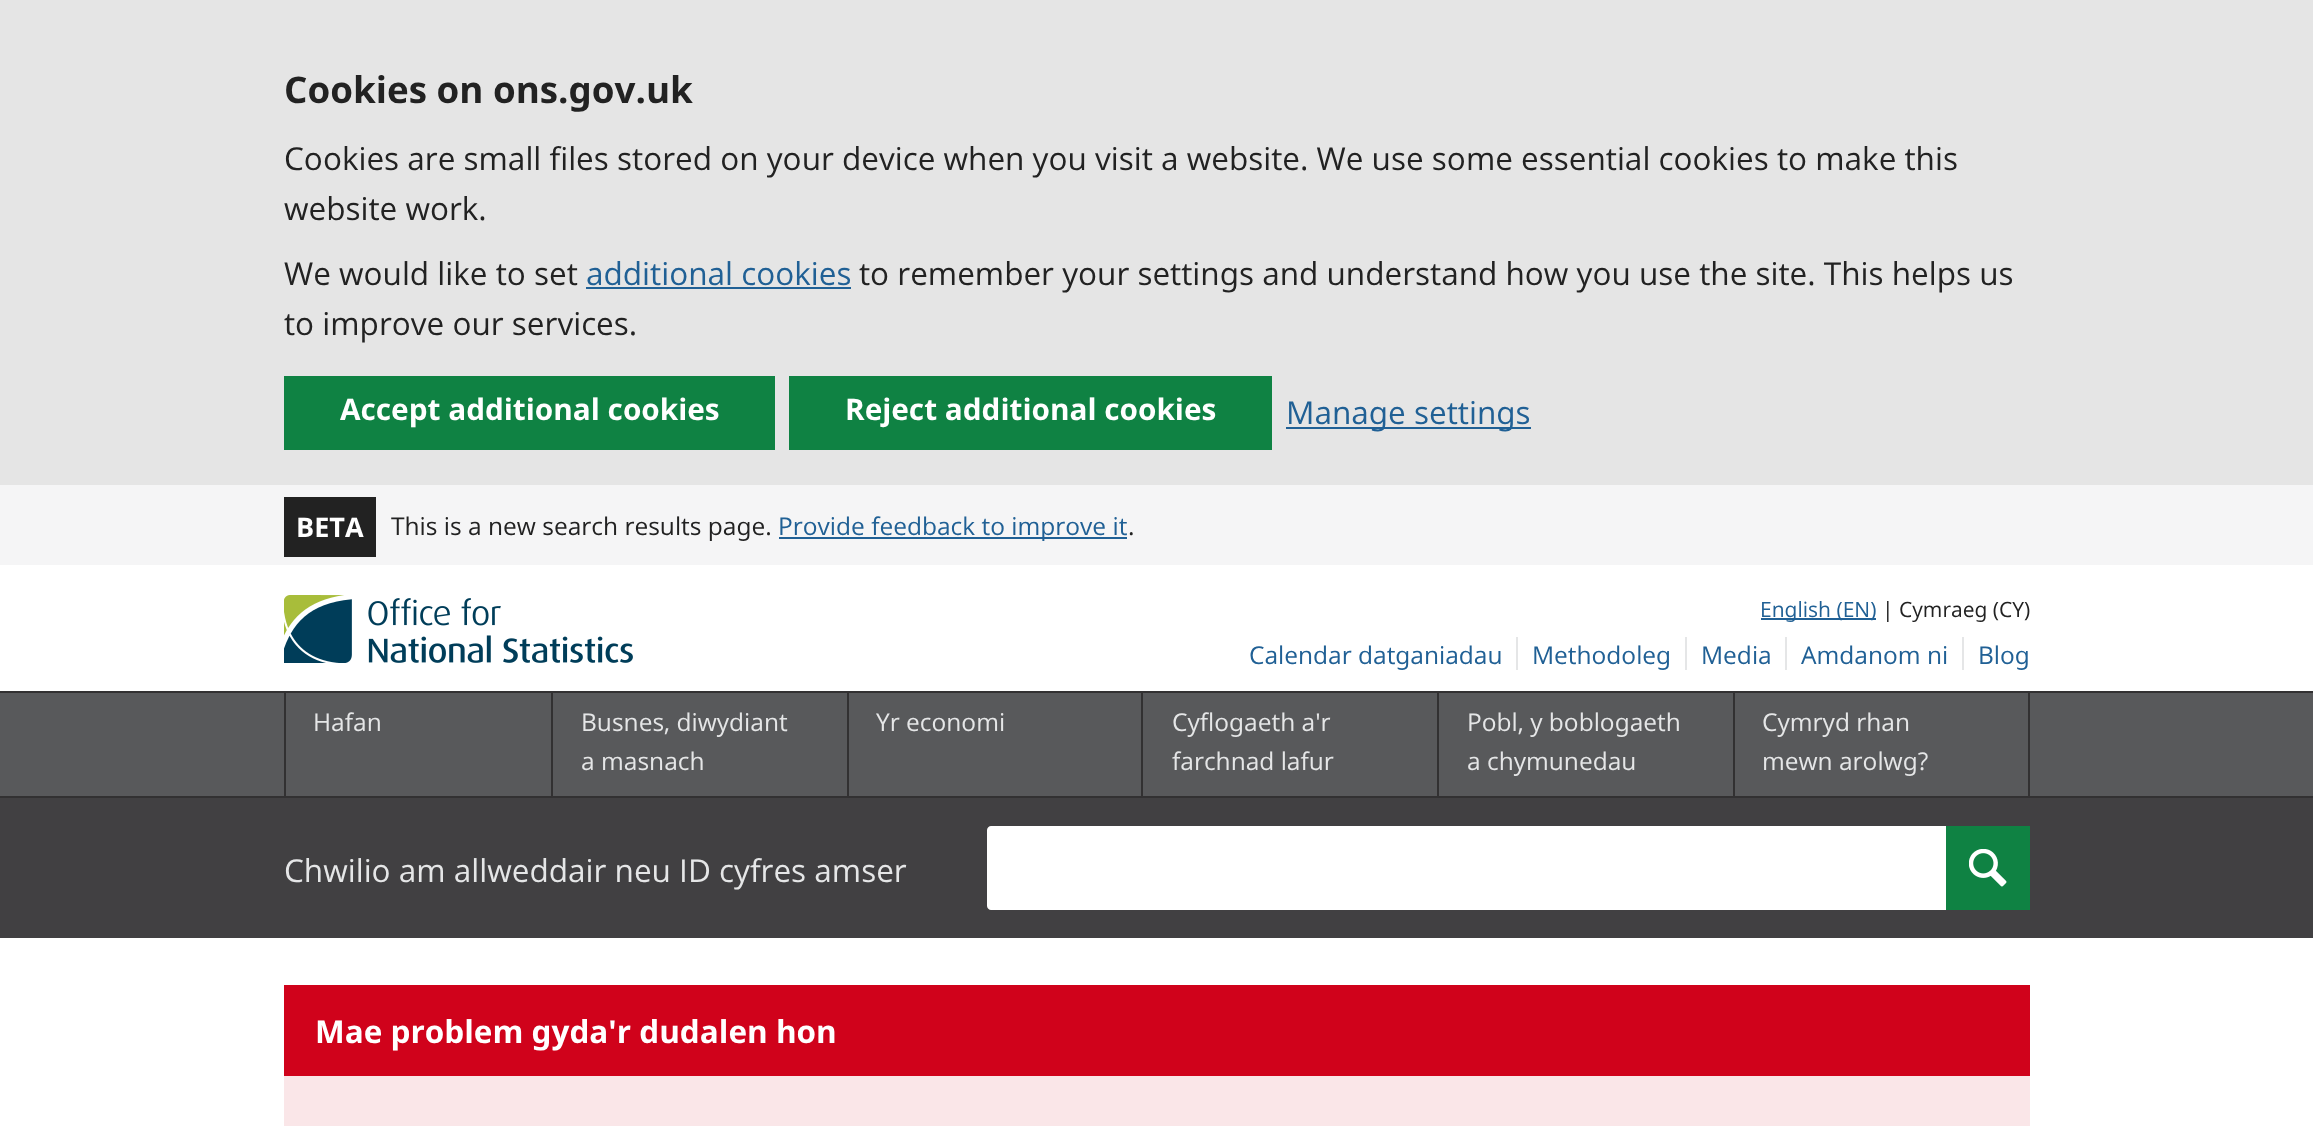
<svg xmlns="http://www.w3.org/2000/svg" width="2313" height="1126">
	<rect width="100%" height="100%" fill="#FFFFFF" />
	<rect x="0" y="0" width="2313" height="485" fill="#E5E5E5" />
	<text x="284" y="103" font-family="Open Sans" font-size="36.75" font-weight="700" fill="#222222">Cookies on ons.gov.uk</text>
	<g font-family="Open Sans" font-size="31.5" fill="#222222">
		<text x="284" y="170">Cookies are small files stored on your device when you visit a website. We use some essential cookies to make this</text>
		<text x="284" y="220">website work.</text>
		<text x="284" y="285">We would like to set</text>
	</g>
	<text x="586" y="285" font-family="Open Sans" font-size="31.5" fill="#206095">additional cookies</text>
	<rect x="586" y="287" width="265" height="2" fill="#206095" />
	<g font-family="Open Sans" font-size="31.5" fill="#222222">
		<text x="859" y="285">to remember your settings and understand how you use the site. This helps us</text>
		<text x="284" y="335">to improve our services.</text>
	</g>
	<rect x="284" y="376" width="491" height="74" fill="#0F8243" />
	<text x="340" y="420" font-family="Open Sans" font-size="29.75" font-weight="700" fill="#FFFFFF">Accept additional cookies</text>
	<rect x="789" y="376" width="483" height="74" fill="#0F8243" />
	<text x="845" y="420" font-family="Open Sans" font-size="29.75" font-weight="700" fill="#FFFFFF">Reject additional cookies</text>
	<rect x="1286" y="427" width="245" height="2" fill="#206095" />
	<text x="1286" y="424" font-family="Open Sans" font-size="31.5" fill="#206095">Manage settings</text>
	<rect x="0" y="485" width="2313" height="80" fill="#F5F5F6" />
	<rect x="284" y="497" width="92" height="60" fill="#222222" />
	<text x="296" y="537" font-family="Open Sans" font-size="27" font-weight="700" fill="#FFFFFF">BETA</text>
	<text x="391" y="535" font-family="Open Sans" font-size="24.5" fill="#222222">This is a new search results page.</text>
	<rect x="779" y="537" width="348" height="2" fill="#206095" />
	<text x="778" y="535" font-family="Open Sans" font-size="24.5" fill="#206095">Provide feedback to improve it</text>
	<text x="1128" y="535" font-family="Open Sans" font-size="24.5" fill="#222222">.</text>
	<image x="284" y="595" width="349" height="68" href="assets/img1.png" />
	<rect x="1761" y="618" width="115" height="2" fill="#206095" />
	<text x="1760" y="617" font-family="Open Sans" font-size="21" fill="#206095">English (EN)</text>
	<text x="1882" y="617" font-family="Open Sans" font-size="21" fill="#222222">| Cymraeg (CY)</text>
	<text x="1249" y="664" font-family="Open Sans" font-size="24.5" fill="#206095">Calendar datganiadau</text>
	<rect x="1516" y="637" width="2" height="33" fill="#E5E6E7" />
	<text x="1532" y="664" font-family="Open Sans" font-size="24.5" fill="#206095">Methodoleg</text>
	<rect x="1685" y="637" width="2" height="33" fill="#E5E6E7" />
	<text x="1701" y="664" font-family="Open Sans" font-size="24.5" fill="#206095">Media</text>
	<rect x="1785" y="637" width="2" height="33" fill="#E5E6E7" />
	<text x="1801" y="664" font-family="Open Sans" font-size="24.5" fill="#206095">Amdanom ni</text>
	<rect x="1962" y="637" width="2" height="33" fill="#E5E6E7" />
	<text x="1978" y="664" font-family="Open Sans" font-size="24.5" fill="#206095">Blog</text>
	<rect x="0" y="693" width="2313" height="103" fill="#58595B" />
	<rect x="0" y="691" width="2313" height="2" fill="#323132" />
	<rect x="0" y="796" width="2313" height="2" fill="#323132" />
	<rect x="284" y="693" width="2" height="103" fill="#323132" />
	<text x="313" y="731" font-family="Open Sans" font-size="24.5" fill="#E5E6E7">Hafan</text>
	<rect x="551" y="693" width="2" height="103" fill="#323132" />
	<g font-family="Open Sans" font-size="24.5" fill="#E5E6E7">
		<text x="581" y="731">Busnes, diwydiant</text>
		<text x="581" y="770">a masnach</text>
	</g>
	<rect x="847" y="693" width="2" height="103" fill="#323132" />
	<text x="876" y="731" font-family="Open Sans" font-size="24.5" fill="#E5E6E7">Yr economi</text>
	<rect x="1141" y="693" width="2" height="103" fill="#323132" />
	<g font-family="Open Sans" font-size="24.5" fill="#E5E6E7">
		<text x="1172" y="731">Cyflogaeth a'r</text>
		<text x="1172" y="770">farchnad lafur</text>
	</g>
	<rect x="1437" y="693" width="2" height="103" fill="#323132" />
	<g font-family="Open Sans" font-size="24.5" fill="#E5E6E7">
		<text x="1467" y="731">Pobl, y boblogaeth</text>
		<text x="1467" y="770">a chymunedau</text>
	</g>
	<rect x="2028" y="693" width="2" height="103" fill="#323132" />
	<rect x="1733" y="693" width="2" height="103" fill="#323132" />
	<g font-family="Open Sans" font-size="24.5" fill="#E5E6E7">
		<text x="1762" y="731">Cymryd rhan</text>
		<text x="1762" y="770">mewn arolwg?</text>
	</g>
	<rect x="0" y="798" width="2313" height="140" fill="#414042" />
	<text x="284" y="882" font-family="Open Sans" font-size="31.5" fill="#E5E6E7">Chwilio am allweddair neu ID cyfres amser</text>
	<path d="M991 826H1946V910H991C989 910 987 908 987 906V830C987 828 989 826 991 826Z" fill="#FFFFFF" />
	<rect x="1946" y="826" width="84" height="84" fill="#0F8243" />
	<image x="1969" y="849" width="38" height="38" href="assets/img2.png" />
	<rect x="284" y="1076" width="1746" height="50" fill="#FAE6E8" />
	<rect x="284" y="985" width="1746" height="91" fill="#D0021B" />
	<text x="315" y="1043" font-family="Open Sans" font-size="31.5" font-weight="700" fill="#FFFFFF">Mae problem gyda'r dudalen hon</text>
</svg>
